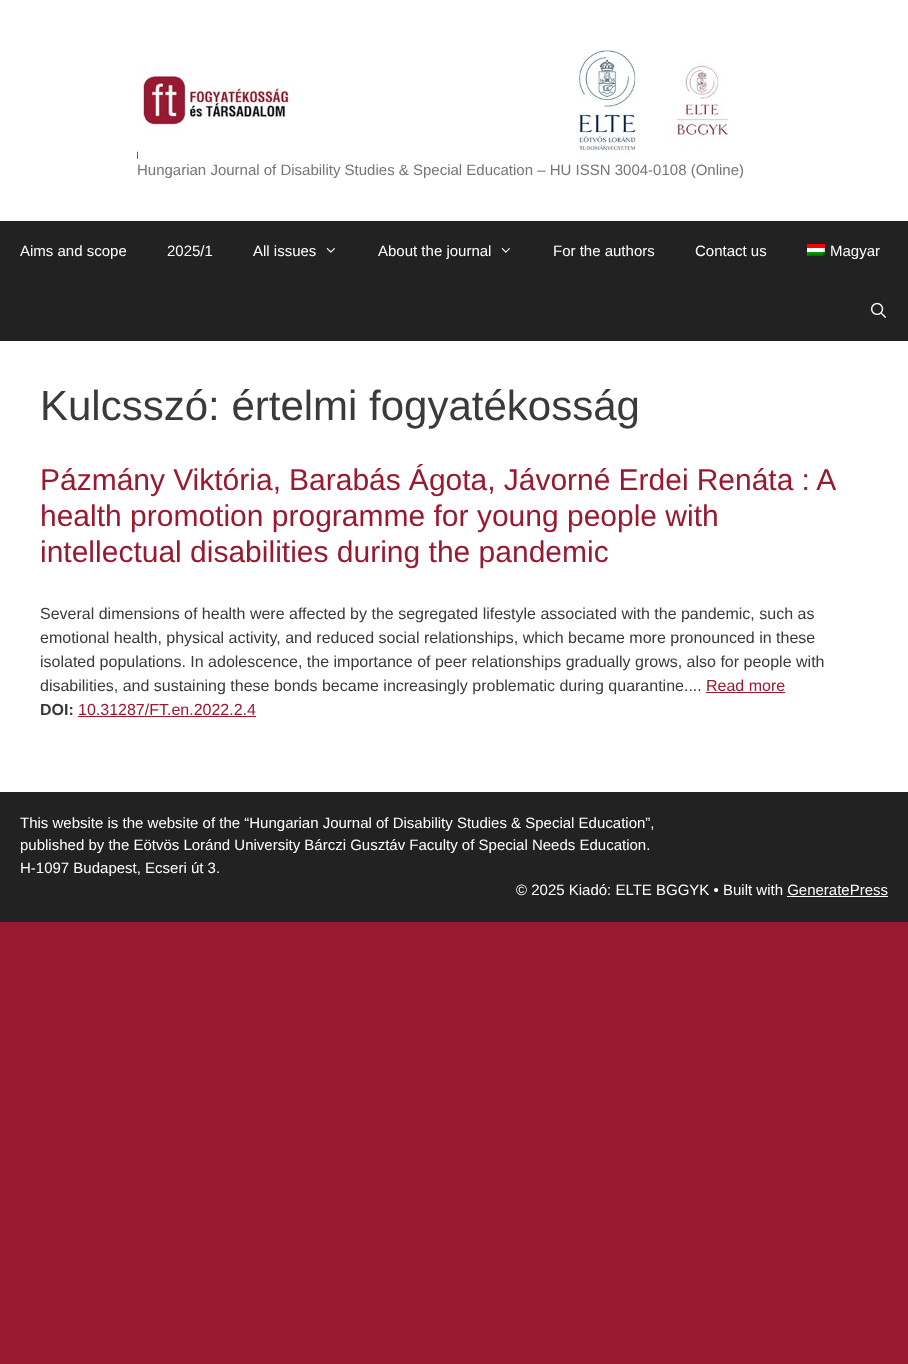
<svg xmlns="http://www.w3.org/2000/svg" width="908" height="1364">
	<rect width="100%" height="100%" fill="#981A32" />
	<rect x="0" y="0" width="908" height="221" fill="#FFFFFF" />
	<image x="137" y="50" width="596" height="109" href="assets/img1.png" />
	<text x="137" y="175" font-family="Liberation Sans" font-size="15" fill="#757575">Hungarian Journal of Disability Studies &amp; Special Education – HU ISSN 3004-0108 (Online)</text>
	<rect x="0" y="221" width="908" height="120" fill="#222222" />
	<g font-family="Liberation Sans" font-size="15" fill="#FFFFFF">
		<text x="20" y="256">Aims and scope</text>
		<text x="167" y="256">2025/1</text>
		<text x="253" y="256">All issues</text>
	</g>
	<image x="326" y="248" width="9" height="5" href="assets/img2.png" />
	<text x="378" y="256" font-family="Liberation Sans" font-size="15" fill="#FFFFFF">About the journal</text>
	<image x="501" y="248" width="9" height="5" href="assets/img2.png" />
	<g font-family="Liberation Sans" font-size="15" fill="#FFFFFF">
		<text x="553" y="256">For the authors</text>
		<text x="695" y="256">Contact us</text>
	</g>
	<image x="807" y="244" width="18" height="12" href="assets/img3.png" />
	<text x="830" y="256" font-family="Liberation Sans" font-size="15" fill="#FFFFFF">Magyar</text>
	<image x="871" y="302" width="15" height="16" href="assets/img4.png" />
	<rect x="0" y="341" width="908" height="451" fill="#FFFFFF" />
	<text x="40" y="420" font-family="Liberation Sans" font-size="42" fill="#3A3A3A">Kulcsszó: értelmi fogyatékosság</text>
	<g font-family="Liberation Sans" font-size="30" fill="#981A32">
		<text x="40" y="490" word-spacing="-0.25">Pázmány Viktória, Barabás Ágota, Jávorné Erdei Renáta : A</text>
		<text x="40" y="526">health promotion programme for young people with</text>
		<text x="40" y="562">intellectual disabilities during the pandemic</text>
	</g>
	<g font-family="Liberation Sans" font-size="16" fill="#3A3A3A">
		<text x="40" y="619">Several dimensions of health were affected by the segregated lifestyle associated with the pandemic, such as</text>
		<text x="40" y="643">emotional health, physical activity, and reduced social relationships, which became more pronounced in these</text>
		<text x="40" y="667">isolated populations. In adolescence, the importance of peer relationships gradually grows, also for people with</text>
		<text x="40" y="691">disabilities, and sustaining these bonds became increasingly problematic during quarantine....</text>
	</g>
	<text x="706" y="691" font-family="Liberation Sans" font-size="16" fill="#981A32">Read more</text>
	<rect x="706" y="692" width="79" height="1" fill="#981A32" />
	<text x="40" y="715" font-family="Liberation Sans" font-size="16" font-weight="700" fill="#3A3A3A">DOI:</text>
	<text x="78" y="715" font-family="Liberation Sans" font-size="16" fill="#981A32">10.31287/FT.en.2022.2.4</text>
	<rect x="78" y="716" width="178" height="1" fill="#981A32" />
	<rect x="0" y="792" width="908" height="130" fill="#222222" />
	<g font-family="Liberation Sans" font-size="15" fill="#FFFFFF">
		<text x="20" y="828">This website is the website of the “Hungarian Journal of Disability Studies &amp; Special Education”,</text>
		<text x="20" y="850">published by the Eötvös Loránd University Bárczi Gusztáv Faculty of Special Needs Education.</text>
		<text x="20" y="873">H-1097 Budapest, Ecseri út 3.</text>
		<text x="516" y="895">© 2025 Kiadó: ELTE BGGYK • Built with GeneratePress</text>
	</g>
	<rect x="787" y="896" width="101" height="1" fill="#FFFFFF" />
</svg>
